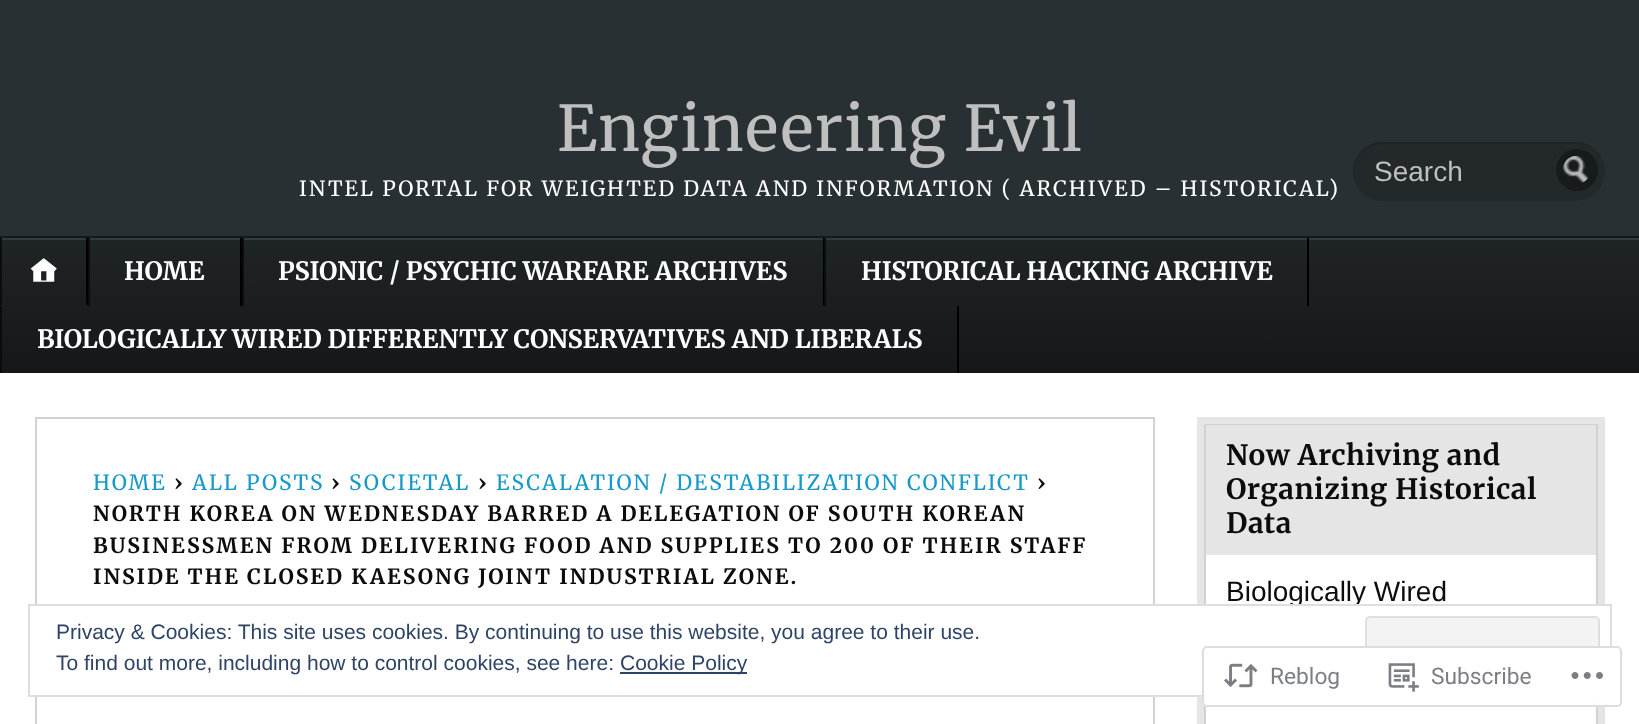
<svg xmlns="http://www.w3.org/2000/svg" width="1639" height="724">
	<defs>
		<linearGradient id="g1" gradientUnits="userSpaceOnUse" x1="820" y1="103" x2="820" y2="238"><stop offset="0" stop-color="#1F2426" /><stop offset="1" stop-color="#15181A" /></linearGradient>
		<linearGradient id="g2" gradientUnits="userSpaceOnUse" x1="820" y1="238" x2="820" y2="373"><stop offset="0" stop-color="#1F2426" /><stop offset="1" stop-color="#15181A" /></linearGradient>
		<clipPath id="clip1"><rect x="0" y="238" width="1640" height="135" /></clipPath>
	</defs>
	<rect width="100%" height="100%" fill="#FFFFFF" />
	<rect x="0" y="0" width="1639" height="236" fill="#293033" />
	<text x="557" y="151" font-family="Merriweather" font-size="63" letter-spacing="1.25" fill="#BFBFBF">Engineering Evil</text>
	<text x="299" y="196" font-family="Merriweather" font-size="21" letter-spacing="2.1" fill="#FFFFFF">INTEL PORTAL FOR WEIGHTED DATA AND INFORMATION ( ARCHIVED – HISTORICAL)</text>
	<rect x="1353" y="142" width="252" height="59" rx="29.5" fill="#23292B" />
	<path d="M1384 144H1577C1587 144 1596 149 1601 157C1596 148 1587 142 1576 142H1382C1366 142 1353 155 1353 172C1353 178 1355 183 1358 188C1347 168 1361 144 1384 144Z" fill="#000000" fill-opacity="0.1" />
	<text x="1374" y="181" font-family="Liberation Sans" font-size="28" fill="#BFBFBF">Search</text>
	<circle cx="1577" cy="170" r="21" fill="#171B1C" />
	<image x="1563" y="155" width="26" height="28" href="assets/img1.png" />
	<rect x="0" y="236" width="1639" height="2" fill="url(#g1)" />
	<rect x="0" y="240" width="1639" height="133" fill="url(#g2)" />
	<g clip-path="url(#clip1)">
		<path d="M-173 65H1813V546H-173ZM0 240H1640C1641 240 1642 241 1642 242V376C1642 377 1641 378 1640 378H0C-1 378-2 377-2 376V242C-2 241-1 240 0 240Z" fill="#353A3C" fill-rule="evenodd" />
	</g>
	<rect x="86" y="238" width="2" height="67" fill="#000000" />
	<rect x="0" y="238" width="2" height="67" fill="#0C0C0C" />
	<image x="30" y="258" width="27" height="24" href="assets/img2.png" />
	<rect x="240" y="238" width="2" height="68" fill="#000000" />
	<rect x="88" y="238" width="2" height="68" fill="#0C0C0C" />
	<text x="124" y="280" font-family="Merriweather" font-size="25.2" font-weight="700" fill="#FFFFFF">HOME</text>
	<rect x="823" y="238" width="1" height="68" fill="#000000" />
	<rect x="242" y="238" width="2" height="68" fill="#0C0C0C" />
	<text x="278" y="280" font-family="Merriweather" font-size="25.2" font-weight="700" fill="#FFFFFF">PSIONIC / PSYCHIC WARFARE ARCHIVES</text>
	<rect x="1307" y="238" width="2" height="68" fill="#000000" />
	<rect x="824" y="238" width="2" height="68" fill="#0C0C0C" />
	<text x="861" y="280" font-family="Merriweather" font-size="25.2" font-weight="700" fill="#FFFFFF">HISTORICAL HACKING ARCHIVE</text>
	<rect x="957" y="306" width="2" height="67" fill="#000000" />
	<rect x="0" y="306" width="2" height="67" fill="#0C0C0C" />
	<text x="37" y="348" font-family="Merriweather" font-size="25.2" font-weight="700" fill="#FFFFFF">BIOLOGICALLY WIRED DIFFERENTLY CONSERVATIVES AND LIBERALS</text>
	<rect x="36" y="418" width="1118" height="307" fill="none" stroke="#D2D2D2" stroke-width="2" />
	<text x="93" y="490" font-family="Merriweather" font-size="21" letter-spacing="2.1" fill="#1899CB">HOME</text>
	<text x="174" y="490" font-family="Merriweather" font-size="21" font-weight="700" letter-spacing="2.1" fill="#0C0C0C">›</text>
	<text x="192" y="490" font-family="Merriweather" font-size="21" letter-spacing="2.1" fill="#1899CB">ALL POSTS</text>
	<text x="331" y="490" font-family="Merriweather" font-size="21" font-weight="700" letter-spacing="2.1" fill="#0C0C0C">›</text>
	<text x="349" y="490" font-family="Merriweather" font-size="21" letter-spacing="2.1" fill="#1899CB">SOCIETAL</text>
	<text x="478" y="490" font-family="Merriweather" font-size="21" font-weight="700" letter-spacing="2.1" fill="#0C0C0C">›</text>
	<text x="496" y="490" font-family="Merriweather" font-size="21" letter-spacing="2.1" fill="#1899CB">ESCALATION / DESTABILIZATION CONFLICT</text>
	<g font-family="Merriweather" font-size="21" font-weight="700" letter-spacing="2.1" fill="#0C0C0C">
		<text x="1037" y="490">›</text>
		<text x="93" y="521">NORTH KOREA ON WEDNESDAY BARRED A DELEGATION OF SOUTH KOREAN</text>
		<text x="93" y="553">BUSINESSMEN FROM DELIVERING FOOD AND SUPPLIES TO 200 OF THEIR STAFF</text>
		<text x="93" y="584">INSIDE THE CLOSED KAESONG JOINT INDUSTRIAL ZONE.</text>
	</g>
	<rect x="1197" y="417" width="408" height="307" fill="#E5E5E5" />
	<rect x="1206" y="555" width="390" height="169" fill="#FFFFFF" />
	<rect x="1205" y="425" width="392" height="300" fill="none" stroke="#D2D2D2" stroke-width="2" />
	<rect x="1206" y="425" width="390" height="1" fill="#E5E5E5" />
	<g font-family="Merriweather" font-size="28" font-weight="700" letter-spacing="0.6" fill="#0C0C0C">
		<text x="1226" y="465">Now Archiving and</text>
		<text x="1226" y="499">Organizing Historical</text>
		<text x="1226" y="533">Data</text>
	</g>
	<path d="M1227 699H1575" fill="none" stroke="#D2D2D2" stroke-width="1.8" stroke-dasharray="1.75 1.75" />
	<text x="1226" y="601" font-family="Liberation Sans" font-size="28" fill="#0C0C0C">Biologically Wired</text>
	<rect x="35" y="606" width="1570" height="89" fill="#FFFFFF" />
	<rect x="29" y="605" width="1582" height="91" fill="none" stroke="#DEDEDE" stroke-width="2" />
	<text x="56" y="639" font-family="Liberation Sans" font-size="21" fill="#2E4467">Privacy &amp; Cookies: This site uses cookies. By continuing to use this website, you agree to their use.</text>
	<path d="M1365 679V681C1365 684 1367 686 1370 686H1595C1598 686 1600 684 1600 681V623L1599 621L1600 669C1600 673 1602 684 1594 684H1408C1400 684 1365 691 1365 679Z" fill="#EEEEEE" />
	<rect x="1366" y="617" width="233" height="66" rx="4" fill="#F3F3F3" stroke="#DEDEDE" stroke-width="2" />
	<text x="56" y="670" font-family="Liberation Sans" font-size="21" fill="#2E4467">To find out more, including how to control cookies, see here:</text>
	<rect x="620" y="672" width="127" height="2" fill="#2E4467" />
	<text x="620" y="670" font-family="Liberation Sans" font-size="21" fill="#2E4467">Cookie Policy</text>
	<rect x="1202" y="646" width="420" height="61" rx="5" fill="#FFFFFF" fill-opacity="0.98" />
	<rect x="1203" y="647" width="418" height="59" rx="4" fill="none" stroke="#DCDCDE" stroke-opacity="0.98" stroke-width="2" />
	<image x="1224" y="663" width="34" height="25" href="assets/img3.png" />
	<text x="1270" y="684" font-family="Roboto" font-size="22.75" fill="#7B7F85">Reblog</text>
	<image x="1388" y="663" width="31" height="29" href="assets/img4.png" />
	<text x="1431" y="684" font-family="Roboto" font-size="22.75" fill="#7B7F85">Subscribe</text>
	<image x="1571" y="672" width="32" height="7" href="assets/img5.png" />
</svg>
